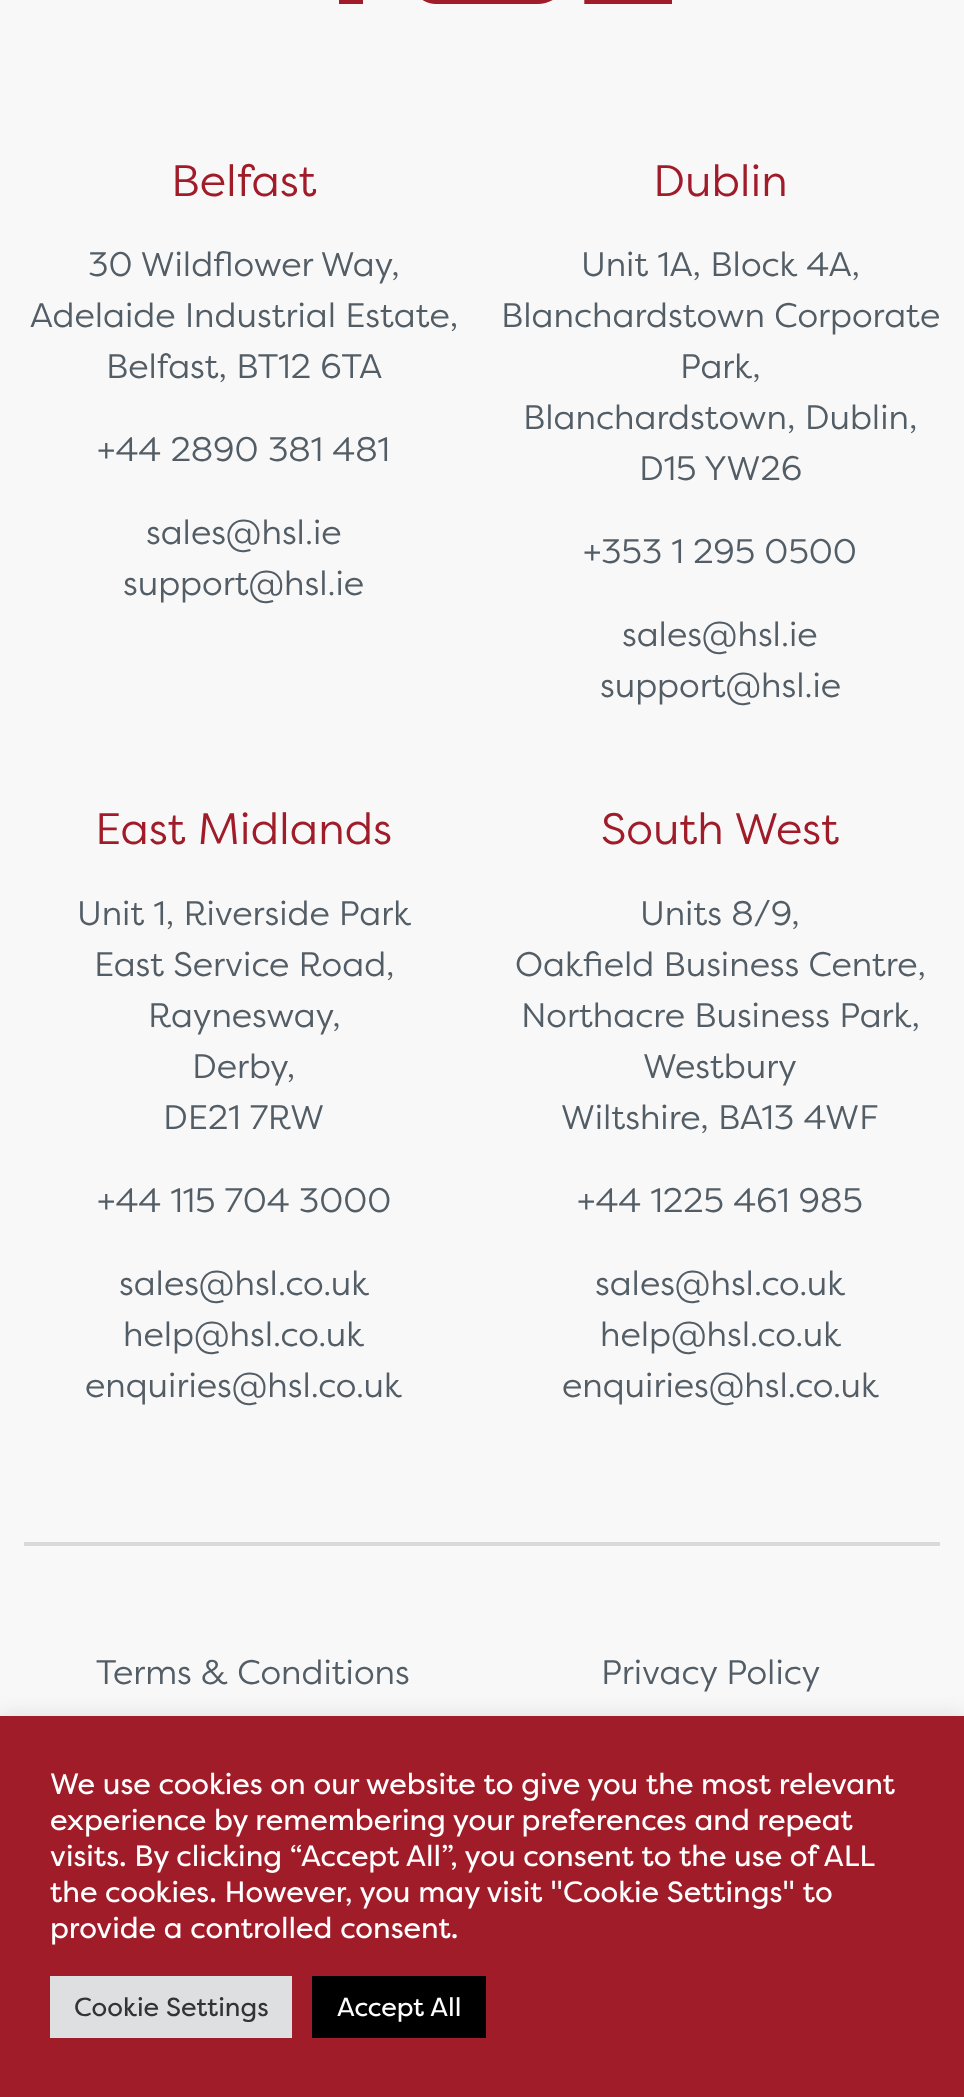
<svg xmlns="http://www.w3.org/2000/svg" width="964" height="2097">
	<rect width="100%" height="100%" fill="#F8F8F9" />
	<image x="339" y="0" width="333" height="4" href="assets/img1.png" />
	<text x="171" y="196" font-family="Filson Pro" font-size="44" fill="#A01C29">Belfast</text>
	<g font-family="Filson Pro" font-size="34" fill="#535D65">
		<text x="88" y="276">30 Wildflower Way,</text>
		<text x="30" y="327">Adelaide Industrial Estate,</text>
		<text x="106" y="378">Belfast, BT12 6TA</text>
		<text x="97" y="461">+44 2890 381 481</text>
		<text x="146" y="544">sales@hsl.ie</text>
		<text x="123" y="595">support@hsl.ie</text>
	</g>
	<text x="653" y="196" font-family="Filson Pro" font-size="44" fill="#A01C29">Dublin</text>
	<g font-family="Filson Pro" font-size="34" fill="#535D65">
		<text x="581" y="276">Unit 1A, Block 4A,</text>
		<text x="501" y="327">Blanchardstown Corporate</text>
		<text x="680" y="378">Park,</text>
		<text x="523" y="429">Blanchardstown, Dublin,</text>
		<text x="639" y="480">D15 YW26</text>
		<text x="583" y="563">+353 1 295 0500</text>
		<text x="622" y="646">sales@hsl.ie</text>
		<text x="600" y="697">support@hsl.ie</text>
	</g>
	<text x="95" y="844" font-family="Filson Pro" font-size="44" fill="#A01C29">East Midlands</text>
	<g font-family="Filson Pro" font-size="34" fill="#535D65">
		<text x="77" y="925">Unit 1, Riverside Park</text>
		<text x="94" y="976">East Service Road,</text>
		<text x="148" y="1027">Raynesway,</text>
		<text x="192" y="1078">Derby,</text>
		<text x="163" y="1129">DE21 7RW</text>
		<text x="97" y="1212">+44 115 704 3000</text>
		<text x="119" y="1295">sales@hsl.co.uk</text>
		<text x="123" y="1346">help@hsl.co.uk</text>
		<text x="85" y="1397">enquiries@hsl.co.uk</text>
	</g>
	<text x="601" y="844" font-family="Filson Pro" font-size="44" fill="#A01C29">South West</text>
	<g font-family="Filson Pro" font-size="34" fill="#535D65">
		<text x="640" y="925">Units 8/9,</text>
		<text x="515" y="976">Oakfield Business Centre,</text>
		<text x="521" y="1027">Northacre Business Park,</text>
		<text x="643" y="1078">Westbury</text>
		<text x="561" y="1129">Wiltshire, BA13 4WF</text>
		<text x="577" y="1212">+44 1225 461 985</text>
		<text x="595" y="1295">sales@hsl.co.uk</text>
		<text x="600" y="1346">help@hsl.co.uk</text>
		<text x="562" y="1397">enquiries@hsl.co.uk</text>
	</g>
	<rect x="24" y="1542" width="916" height="4" fill="#D7D9DB" />
	<g font-family="Filson Pro" font-size="34" fill="#535D65">
		<text x="96" y="1684">Terms &amp; Conditions</text>
		<text x="601" y="1684">Privacy Policy</text>
	</g>
	<rect x="0" y="1714" width="964" height="382" fill="#ACABAB" fill-opacity="0.3" filter="blur(10px)" />
	<rect x="0" y="1716" width="964" height="381" fill="#A01C29" />
	<g font-family="'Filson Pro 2'" font-size="29.3" fill="#FFFFFF">
		<text x="50" y="1794">We use cookies on our website to give you the most relevant</text>
		<text x="50" y="1830">experience by remembering your preferences and repeat</text>
		<text x="50" y="1866" word-spacing="-0.1">visits. By clicking “Accept All”, you consent to the use of ALL</text>
		<text x="50" y="1902">the cookies. However, you may visit "Cookie Settings" to</text>
		<text x="50" y="1938">provide a controlled consent.</text>
	</g>
	<rect x="50" y="1976" width="242" height="62" fill="#DEDFE0" />
	<text x="74" y="2016" font-family="'Filson Pro 2'" font-size="26" fill="#333333">Cookie Settings</text>
	<rect x="312" y="1976" width="174" height="62" fill="#000000" />
	<text x="337" y="2016" font-family="'Filson Pro 2'" font-size="26" fill="#FFFFFF">Accept All</text>
</svg>
